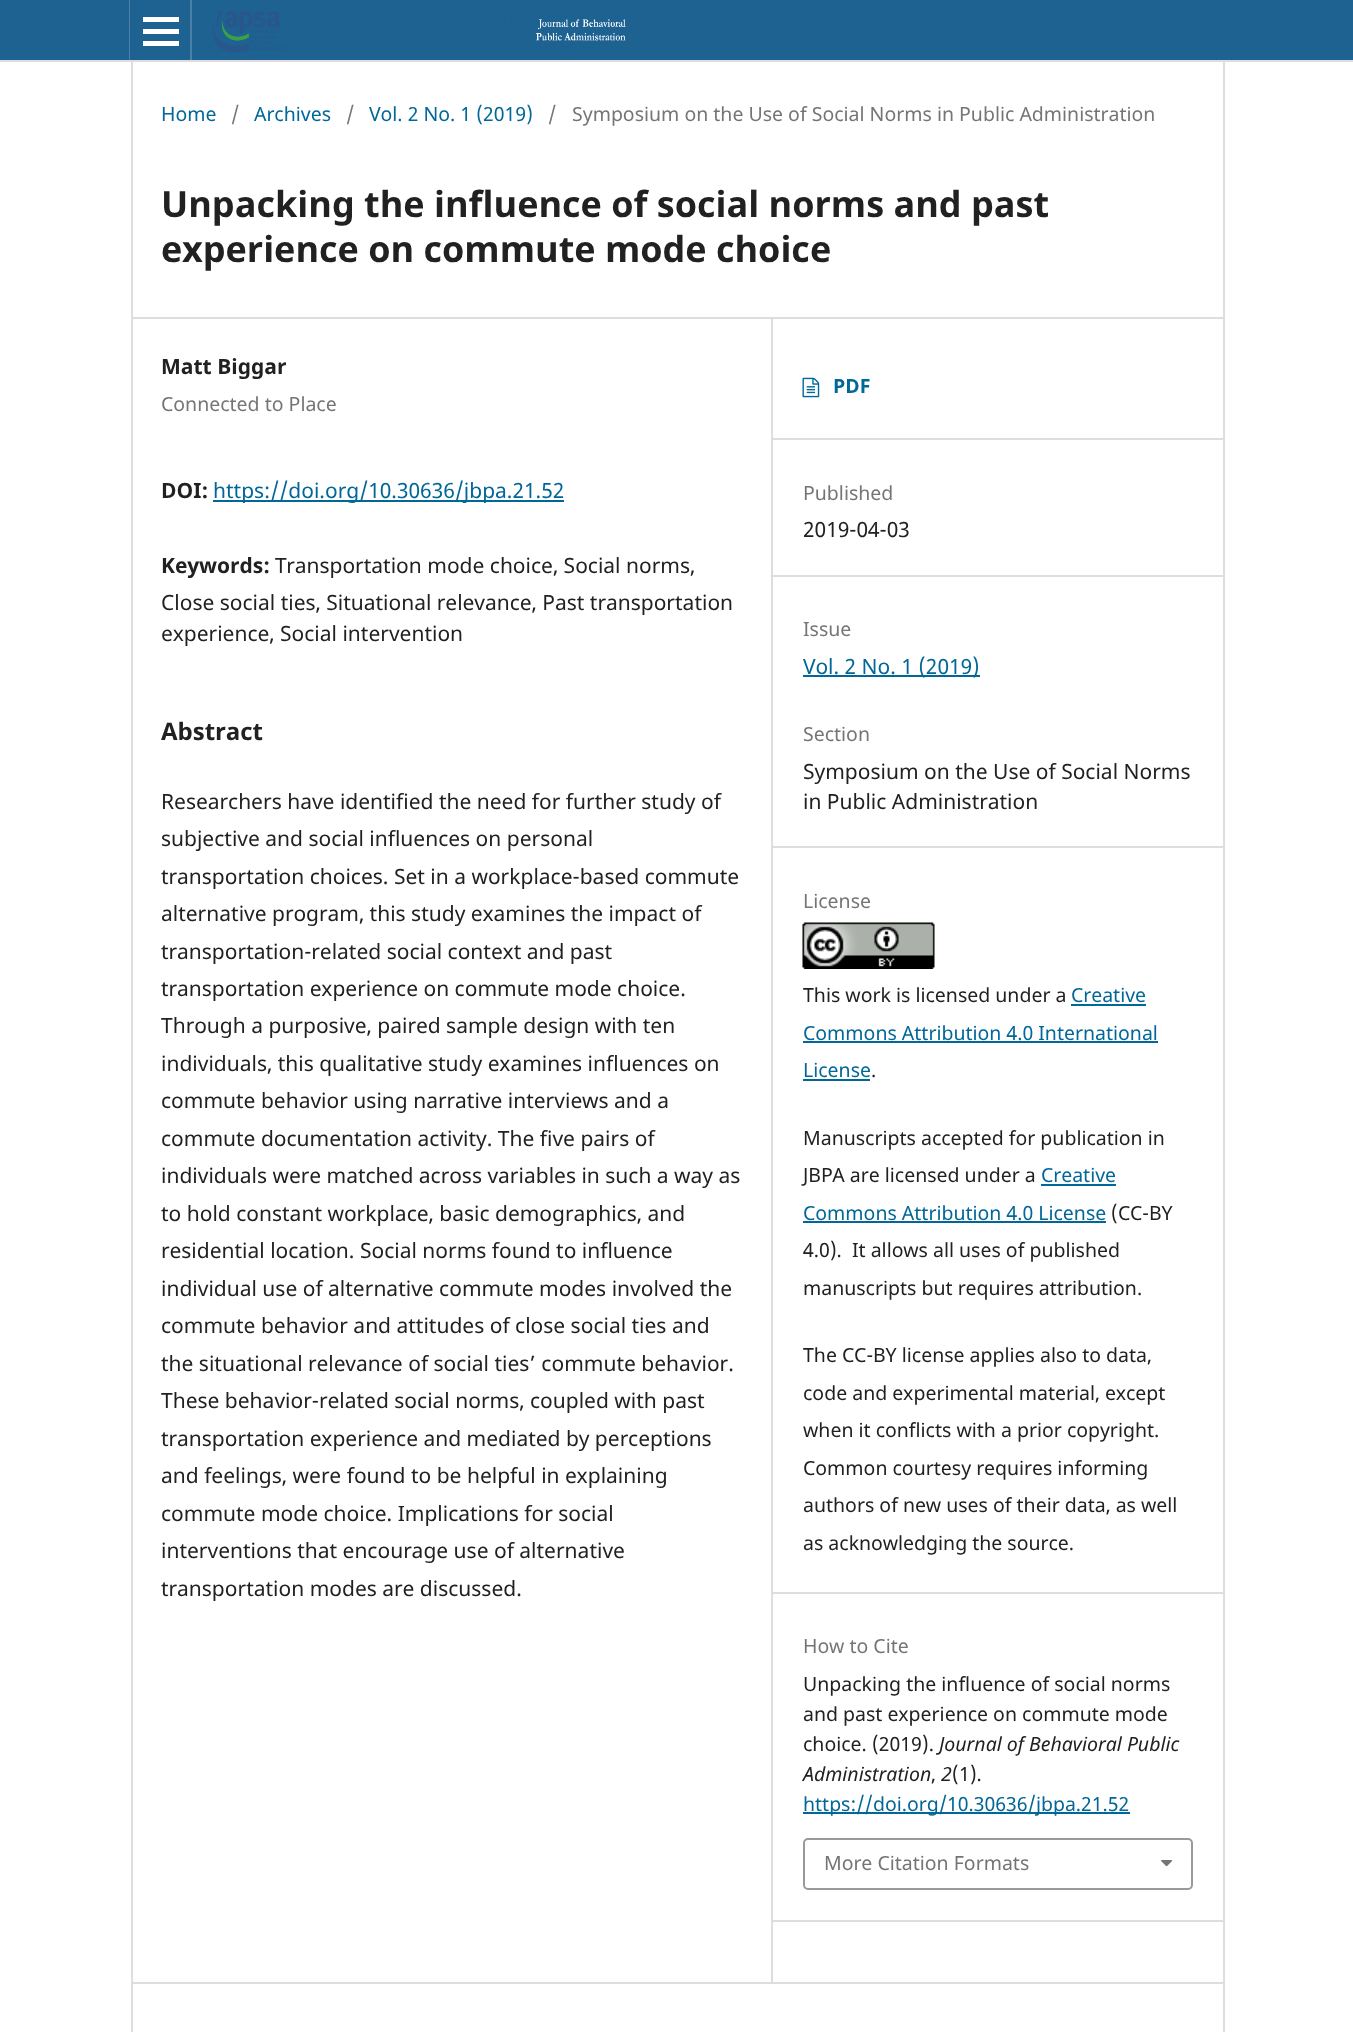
<svg xmlns="http://www.w3.org/2000/svg" width="1353" height="2032">
	<rect width="100%" height="100%" fill="#FFFFFF" />
	<rect x="0" y="0" width="1353" height="60" fill="#1E6292" />
	<rect x="0" y="60" width="1353" height="2" fill="#DDDDDD" />
	<rect x="129" y="0" width="1" height="60" fill="#4B81A8" />
	<rect x="190" y="0" width="2" height="60" fill="#4B81A8" />
	<rect x="143" y="41" width="36" height="5" fill="#FFFFFF" />
	<rect x="143" y="17" width="36" height="5" fill="#FFFFFF" />
	<rect x="143" y="29" width="36" height="5" fill="#FFFFFF" />
	<image x="212" y="11" width="414" height="42" href="assets/img1.png" />
	<rect x="131" y="317" width="1092" height="2" fill="#DDDDDD" />
	<rect x="131" y="1982" width="1092" height="2" fill="#DDDDDD" />
	<rect x="131" y="62" width="2" height="1970" fill="#DDDDDD" />
	<text x="161" y="121" font-family="Noto Sans" font-size="19.5" fill="#006798">Home</text>
	<text x="231" y="121" font-family="Noto Sans" font-size="19.5" fill="#757575">/</text>
	<text x="254" y="121" font-family="Noto Sans" font-size="19.5" fill="#006798">Archives</text>
	<text x="346" y="121" font-family="Noto Sans" font-size="19.5" fill="#757575">/</text>
	<text x="369" y="121" font-family="Noto Sans" font-size="19.5" fill="#006798">Vol. 2 No. 1 (2019)</text>
	<g font-family="Noto Sans" font-size="19.5" fill="#757575">
		<text x="548" y="121">/</text>
		<text x="572" y="121">Symposium on the Use of Social Norms in Public Administration</text>
	</g>
	<g font-family="Noto Sans" font-size="36" font-weight="700" fill="#212121">
		<text x="161" y="217">Unpacking the influence of social norms and past</text>
		<text x="161" y="262">experience on commute mode choice</text>
	</g>
	<text x="161" y="374" font-family="Noto Sans" font-size="21" font-weight="700" fill="#212121">Matt Biggar</text>
	<text x="161" y="411" font-family="Noto Sans" font-size="19.5" fill="#757575">Connected to Place</text>
	<text x="161" y="498" font-family="Noto Sans" font-size="21" font-weight="700" fill="#212121">DOI:</text>
	<rect x="213" y="500" width="351" height="2" fill="#006798" />
	<text x="213" y="498" font-family="Noto Sans" font-size="21" fill="#006798">https://doi.org/10.30636/jbpa.21.52</text>
	<text x="161" y="573" font-family="Noto Sans" font-size="21" font-weight="700" fill="#212121">Keywords:</text>
	<g font-family="Noto Sans" font-size="21" fill="#212121">
		<text x="275" y="573">Transportation mode choice, Social norms,</text>
		<text x="161" y="610">Close social ties, Situational relevance, Past transportation</text>
		<text x="161" y="641">experience, Social intervention</text>
	</g>
	<text x="161" y="740" font-family="Noto Sans" font-size="24" font-weight="700" fill="#212121">Abstract</text>
	<g font-family="Noto Sans" font-size="21" fill="#212121">
		<text x="161" y="809">Researchers have identified the need for further study of</text>
		<text x="161" y="846">subjective and social influences on personal</text>
		<text x="161" y="884">transportation choices. Set in a workplace-based commute</text>
		<text x="161" y="921">alternative program, this study examines the impact of</text>
		<text x="161" y="959">transportation-related social context and past</text>
		<text x="161" y="996">transportation experience on commute mode choice.</text>
		<text x="161" y="1033">Through a purposive, paired sample design with ten</text>
		<text x="161" y="1071">individuals, this qualitative study examines influences on</text>
		<text x="161" y="1108">commute behavior using narrative interviews and a</text>
		<text x="161" y="1146">commute documentation activity. The five pairs of</text>
		<text x="161" y="1183">individuals were matched across variables in such a way as</text>
		<text x="161" y="1221">to hold constant workplace, basic demographics, and</text>
		<text x="161" y="1258">residential location. Social norms found to influence</text>
		<text x="161" y="1296">individual use of alternative commute modes involved the</text>
		<text x="161" y="1333">commute behavior and attitudes of close social ties and</text>
		<text x="161" y="1371">the situational relevance of social ties’ commute behavior.</text>
		<text x="161" y="1408">These behavior-related social norms, coupled with past</text>
		<text x="161" y="1446">transportation experience and mediated by perceptions</text>
		<text x="161" y="1483">and feelings, were found to be helpful in explaining</text>
		<text x="161" y="1521">commute mode choice. Implications for social</text>
		<text x="161" y="1558">interventions that encourage use of alternative</text>
		<text x="161" y="1596">transportation modes are discussed.</text>
	</g>
	<rect x="771" y="318" width="2" height="1664" fill="#DDDDDD" />
	<rect x="773" y="438" width="450" height="2" fill="#DDDDDD" />
	<image x="802" y="377" width="18" height="21" href="assets/img2.png" />
	<text x="833" y="393" font-family="Noto Sans" font-size="19.5" font-weight="700" fill="#006798">PDF</text>
	<rect x="773" y="575" width="450" height="2" fill="#DDDDDD" />
	<text x="803" y="500" font-family="Noto Sans" font-size="19.5" fill="#757575">Published</text>
	<text x="803" y="537" font-family="Noto Sans" font-size="21" fill="#212121">2019-04-03</text>
	<rect x="773" y="846" width="450" height="2" fill="#DDDDDD" />
	<text x="803" y="636" font-family="Noto Sans" font-size="19.5" fill="#757575">Issue</text>
	<rect x="803" y="675" width="177" height="2" fill="#006798" />
	<text x="803" y="674" font-family="Noto Sans" font-size="21" fill="#006798">Vol. 2 No. 1 (2019)</text>
	<text x="803" y="741" font-family="Noto Sans" font-size="19.5" fill="#757575">Section</text>
	<g font-family="Noto Sans" font-size="21" fill="#212121">
		<text x="803" y="779">Symposium on the Use of Social Norms</text>
		<text x="803" y="809">in Public Administration</text>
	</g>
	<rect x="773" y="1592" width="450" height="2" fill="#DDDDDD" />
	<text x="803" y="908" font-family="Noto Sans" font-size="19.5" fill="#757575">License</text>
	<image x="802" y="922" width="133" height="47" href="assets/img3.png" />
	<text x="803" y="1002" font-family="Noto Sans" font-size="19.5" fill="#212121">This work is licensed under a</text>
	<text x="1071" y="1002" font-family="Noto Sans" font-size="19.5" fill="#006798">Creative</text>
	<rect x="1071" y="1004" width="75" height="2" fill="#006798" />
	<text x="803" y="1040" font-family="Noto Sans" font-size="19.5" fill="#006798">Commons Attribution 4.0 International</text>
	<rect x="803" y="1041" width="355" height="2" fill="#006798" />
	<text x="803" y="1077" font-family="Noto Sans" font-size="19.5" fill="#006798">License</text>
	<rect x="803" y="1079" width="67" height="2" fill="#006798" />
	<g font-family="Noto Sans" font-size="19.5" fill="#212121">
		<text x="871" y="1077">.</text>
		<text x="803" y="1145">Manuscripts accepted for publication in</text>
		<text x="803" y="1182">JBPA are licensed under a</text>
	</g>
	<text x="1041" y="1182" font-family="Noto Sans" font-size="19.5" fill="#006798">Creative</text>
	<rect x="1041" y="1184" width="75" height="2" fill="#006798" />
	<text x="803" y="1220" font-family="Noto Sans" font-size="19.5" fill="#006798">Commons Attribution 4.0 License</text>
	<rect x="803" y="1221" width="303" height="2" fill="#006798" />
	<g font-family="Noto Sans" font-size="19.5" fill="#212121">
		<text x="1111" y="1220">(CC-BY</text>
		<text x="803" y="1257" xml:space="preserve">4.0).  It allows all uses of published</text>
		<text x="803" y="1295">manuscripts but requires attribution.</text>
		<text x="803" y="1362">The CC-BY license applies also to data,</text>
		<text x="803" y="1400">code and experimental material, except</text>
		<text x="803" y="1437">when it conflicts with a prior copyright.</text>
		<text x="803" y="1475">Common courtesy requires informing</text>
		<text x="803" y="1512">authors of new uses of their data, as well</text>
		<text x="803" y="1550">as acknowledging the source.</text>
	</g>
	<rect x="773" y="1920" width="450" height="2" fill="#DDDDDD" />
	<text x="803" y="1653" font-family="Noto Sans" font-size="19.5" fill="#757575">How to Cite</text>
	<g font-family="Noto Sans" font-size="19.5" fill="#212121">
		<text x="803" y="1691">Unpacking the influence of social norms</text>
		<text x="803" y="1721">and past experience on commute mode</text>
		<text x="803" y="1751">choice. (2019).</text>
	</g>
	<g font-family="Noto Sans" font-size="19.5" font-style="italic" fill="#212121">
		<text x="939" y="1751">Journal of Behavioral Public</text>
		<text x="803" y="1781">Administration</text>
	</g>
	<text x="931" y="1781" font-family="Noto Sans" font-size="19.5" fill="#212121">,</text>
	<text x="941" y="1781" font-family="Noto Sans" font-size="19.5" font-style="italic" fill="#212121">2</text>
	<text x="952" y="1781" font-family="Noto Sans" font-size="19.5" fill="#212121">(1).</text>
	<rect x="803" y="1812" width="327" height="2" fill="#006798" />
	<text x="803" y="1811" font-family="Noto Sans" font-size="19.5" fill="#006798">https://doi.org/10.30636/jbpa.21.52</text>
	<rect x="804" y="1839" width="388" height="50" rx="4" fill="none" stroke="#999999" stroke-width="2" />
	<text x="824" y="1870" font-family="Noto Sans" font-size="19.5" fill="#757575">More Citation Formats</text>
	<image x="1161" y="1860" width="12" height="7" href="assets/img4.png" />
	<rect x="1223" y="62" width="2" height="1970" fill="#DDDDDD" />
</svg>
